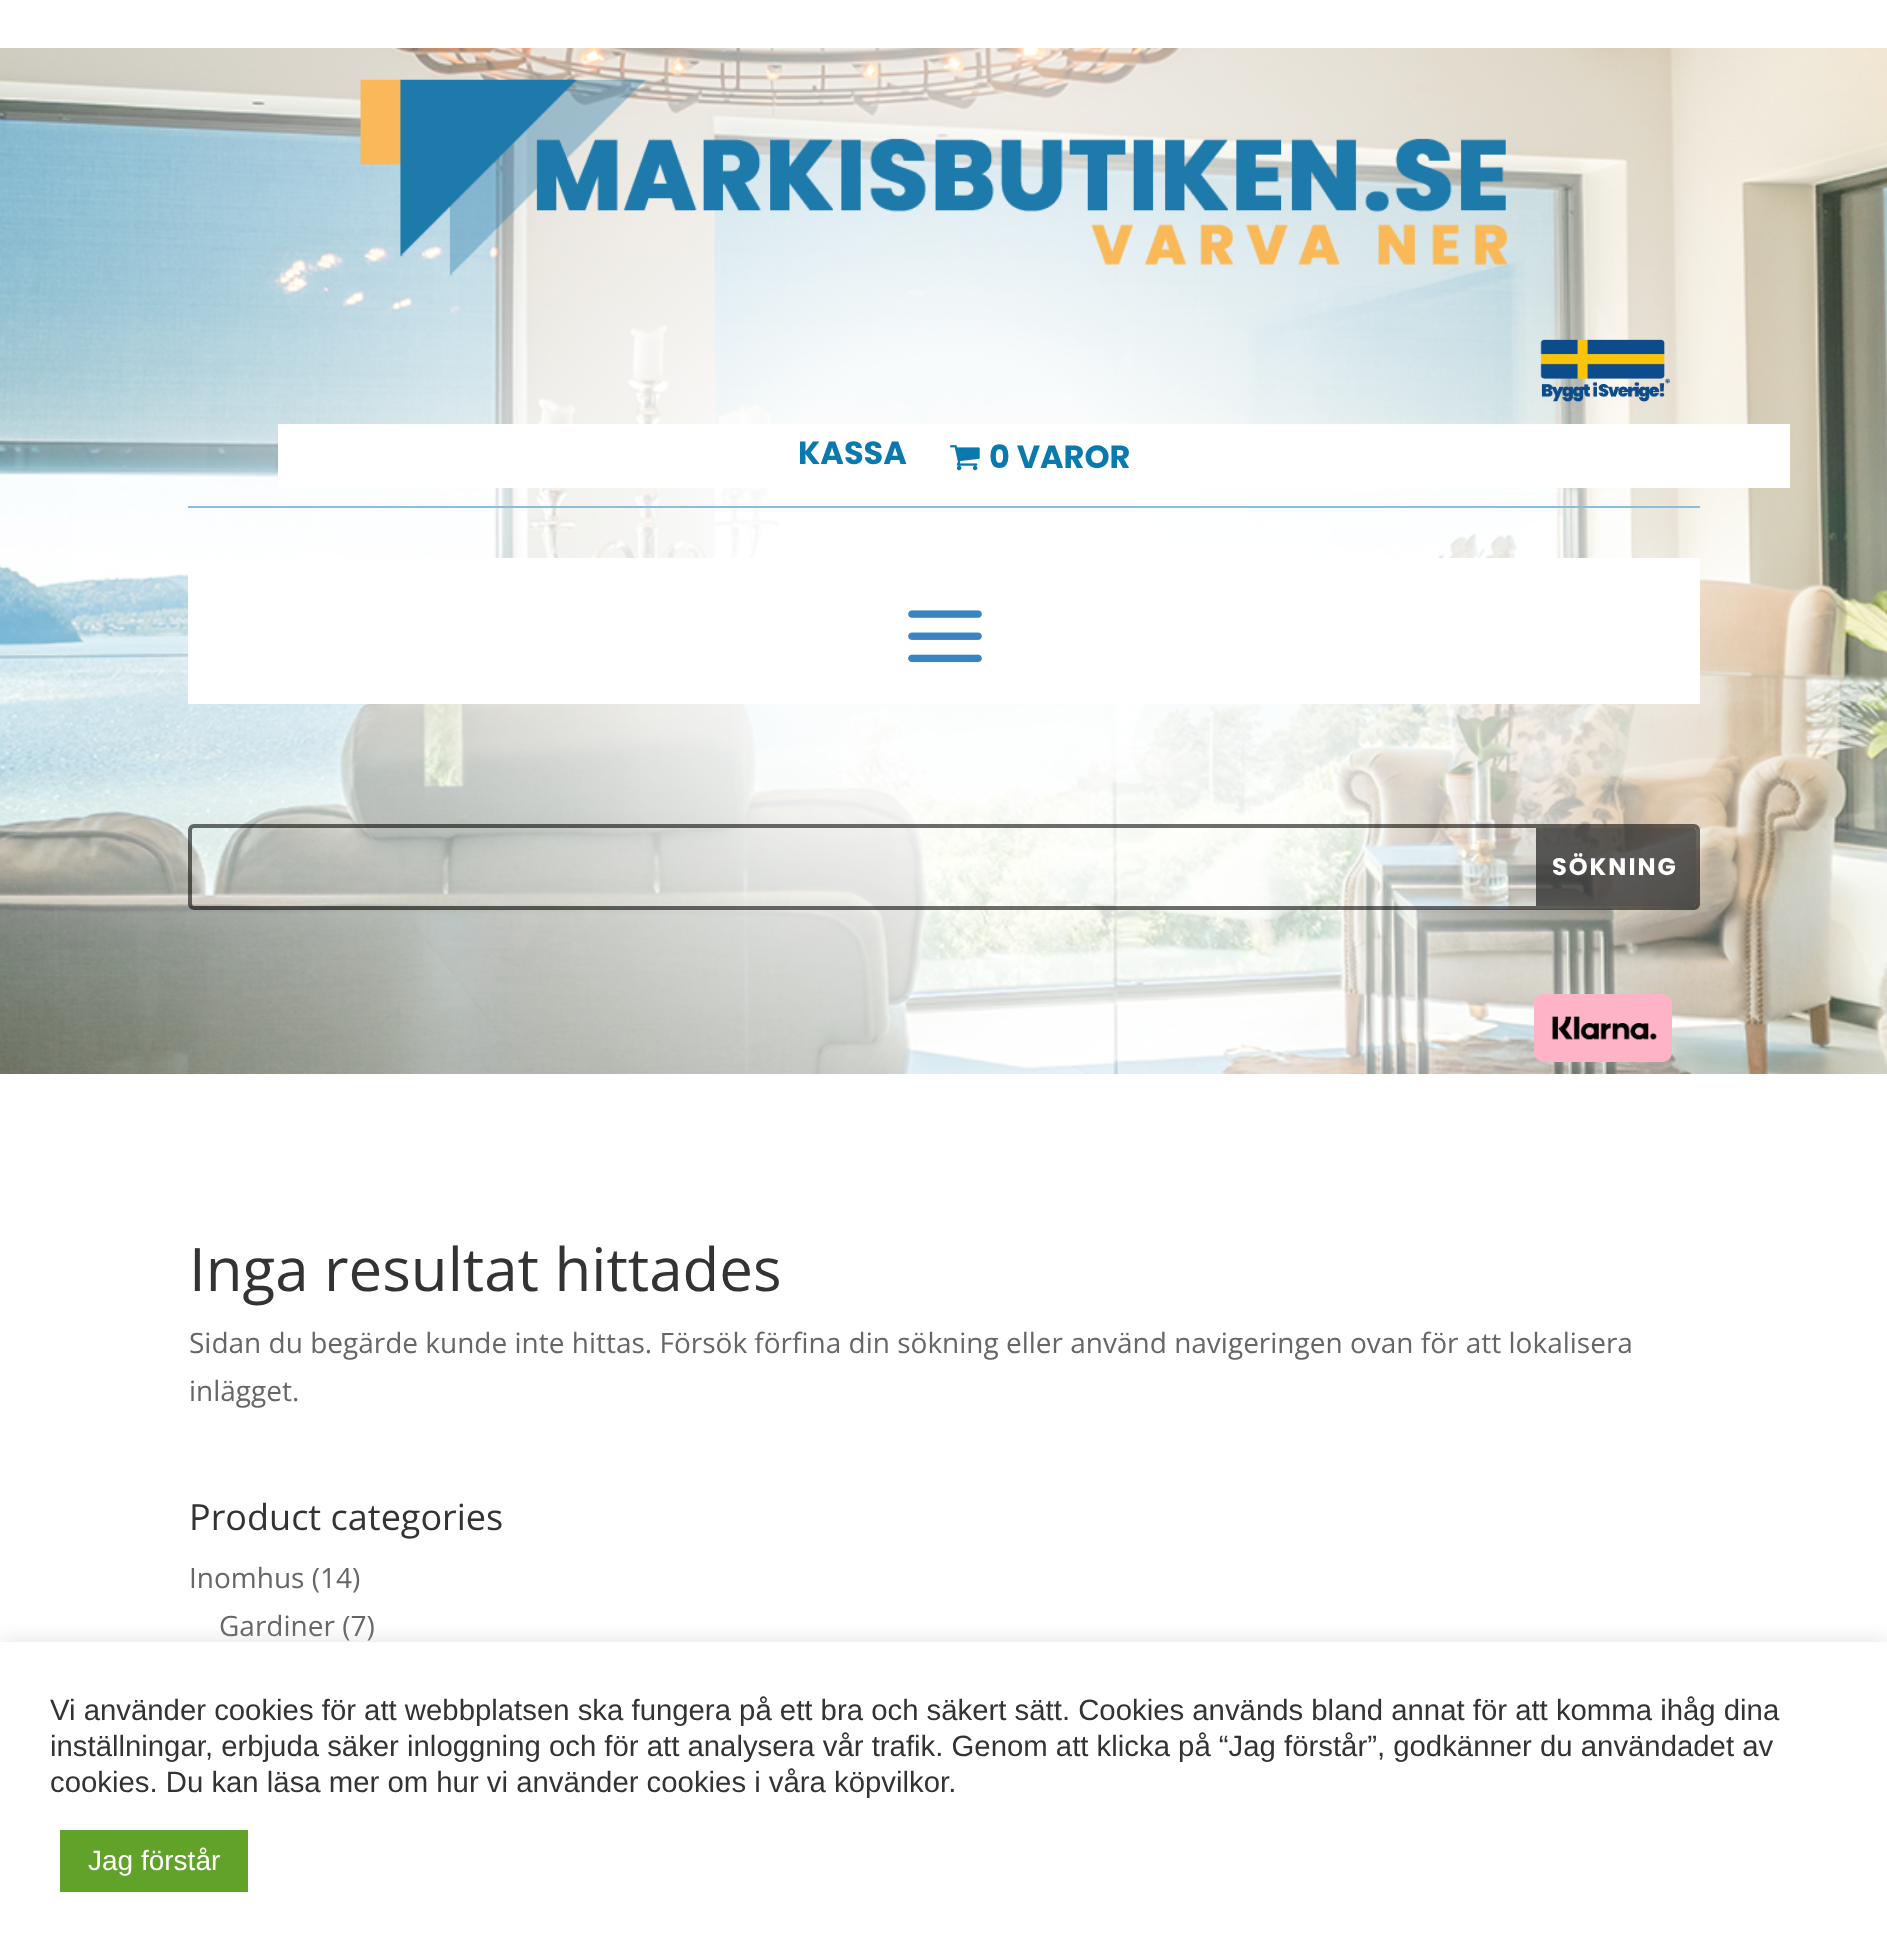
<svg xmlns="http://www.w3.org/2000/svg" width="1887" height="1952">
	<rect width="100%" height="100%" fill="#FFFFFF" />
	<image x="0" y="48" width="1887" height="1026" href="assets/img1.png" />
	<image x="360" y="79" width="1148" height="197" href="assets/img2.png" />
	<image x="1540" y="339" width="130" height="63" href="assets/img3.png" />
	<rect x="278" y="424" width="1512" height="64" fill="#FFFFFF" />
	<text x="798" y="464" font-family="Poppins" font-size="32" font-weight="700" fill="#0A79AD">KASSA</text>
	<image x="950" y="445" width="30" height="26" href="assets/img4.png" />
	<text x="989" y="468" font-family="Poppins" font-size="32" font-weight="700" fill="#0A79AD">0 VAROR</text>
	<rect x="188" y="506" width="1512" height="2" fill="#8CBDDB" />
	<rect x="188" y="558" width="1512" height="146" fill="#FFFFFF" />
	<image x="908" y="610" width="74" height="53" href="assets/img5.png" />
	<rect x="190" y="826" width="1508" height="82" rx="4" fill="none" stroke="#000000" stroke-opacity="0.57" stroke-width="4" />
	<path d="M1536 828H1694C1695 828 1696 829 1696 830V904C1696 905 1695 906 1694 906H1536Z" fill="#2D2D2D" fill-opacity="0.77" />
	<text x="1552" y="875" font-family="Poppins" font-size="24" font-weight="700" letter-spacing="2" fill="#FFFFFF">SÖKNING</text>
	<image x="1534" y="994" width="138" height="68" href="assets/img6.png" />
	<text x="189" y="1291" font-family="Open Sans" font-size="60" fill="#333333">Inga resultat hittades</text>
	<g font-family="Open Sans" font-size="28" fill="#666666">
		<text x="189" y="1353">Sidan du begärde kunde inte hittas. Försök förfina din sökning eller använd navigeringen ovan för att lokalisera</text>
		<text x="189" y="1401">inlägget.</text>
	</g>
	<text x="189" y="1530" font-family="Open Sans" font-size="36" fill="#333333">Product categories</text>
	<g font-family="Open Sans" font-size="28" fill="#666666">
		<text x="189" y="1588">Inomhus (14)</text>
		<text x="219" y="1636">Gardiner (7)</text>
	</g>
	<rect x="0" y="1640" width="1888" height="310" fill="#ACABAB" fill-opacity="0.3" filter="blur(10px)" />
	<rect x="0" y="1642" width="1887" height="310" fill="#FFFFFF" />
	<g font-family="Liberation Sans" font-size="29.33" fill="#333333">
		<text x="50" y="1720">Vi använder cookies för att webbplatsen ska fungera på ett bra och säkert sätt. Cookies används bland annat för att komma ihåg dina</text>
		<text x="50" y="1756">inställningar, erbjuda säker inloggning och för att analysera vår trafik. Genom att klicka på “Jag förstår”, godkänner du användadet av</text>
		<text x="50" y="1792">cookies. Du kan läsa mer om hur vi använder cookies i våra köpvilkor.</text>
	</g>
	<rect x="60" y="1830" width="188" height="62" fill="#61A229" />
	<text x="88" y="1870" font-family="Liberation Sans" font-size="28" fill="#FFFFFF">Jag förstår</text>
</svg>
